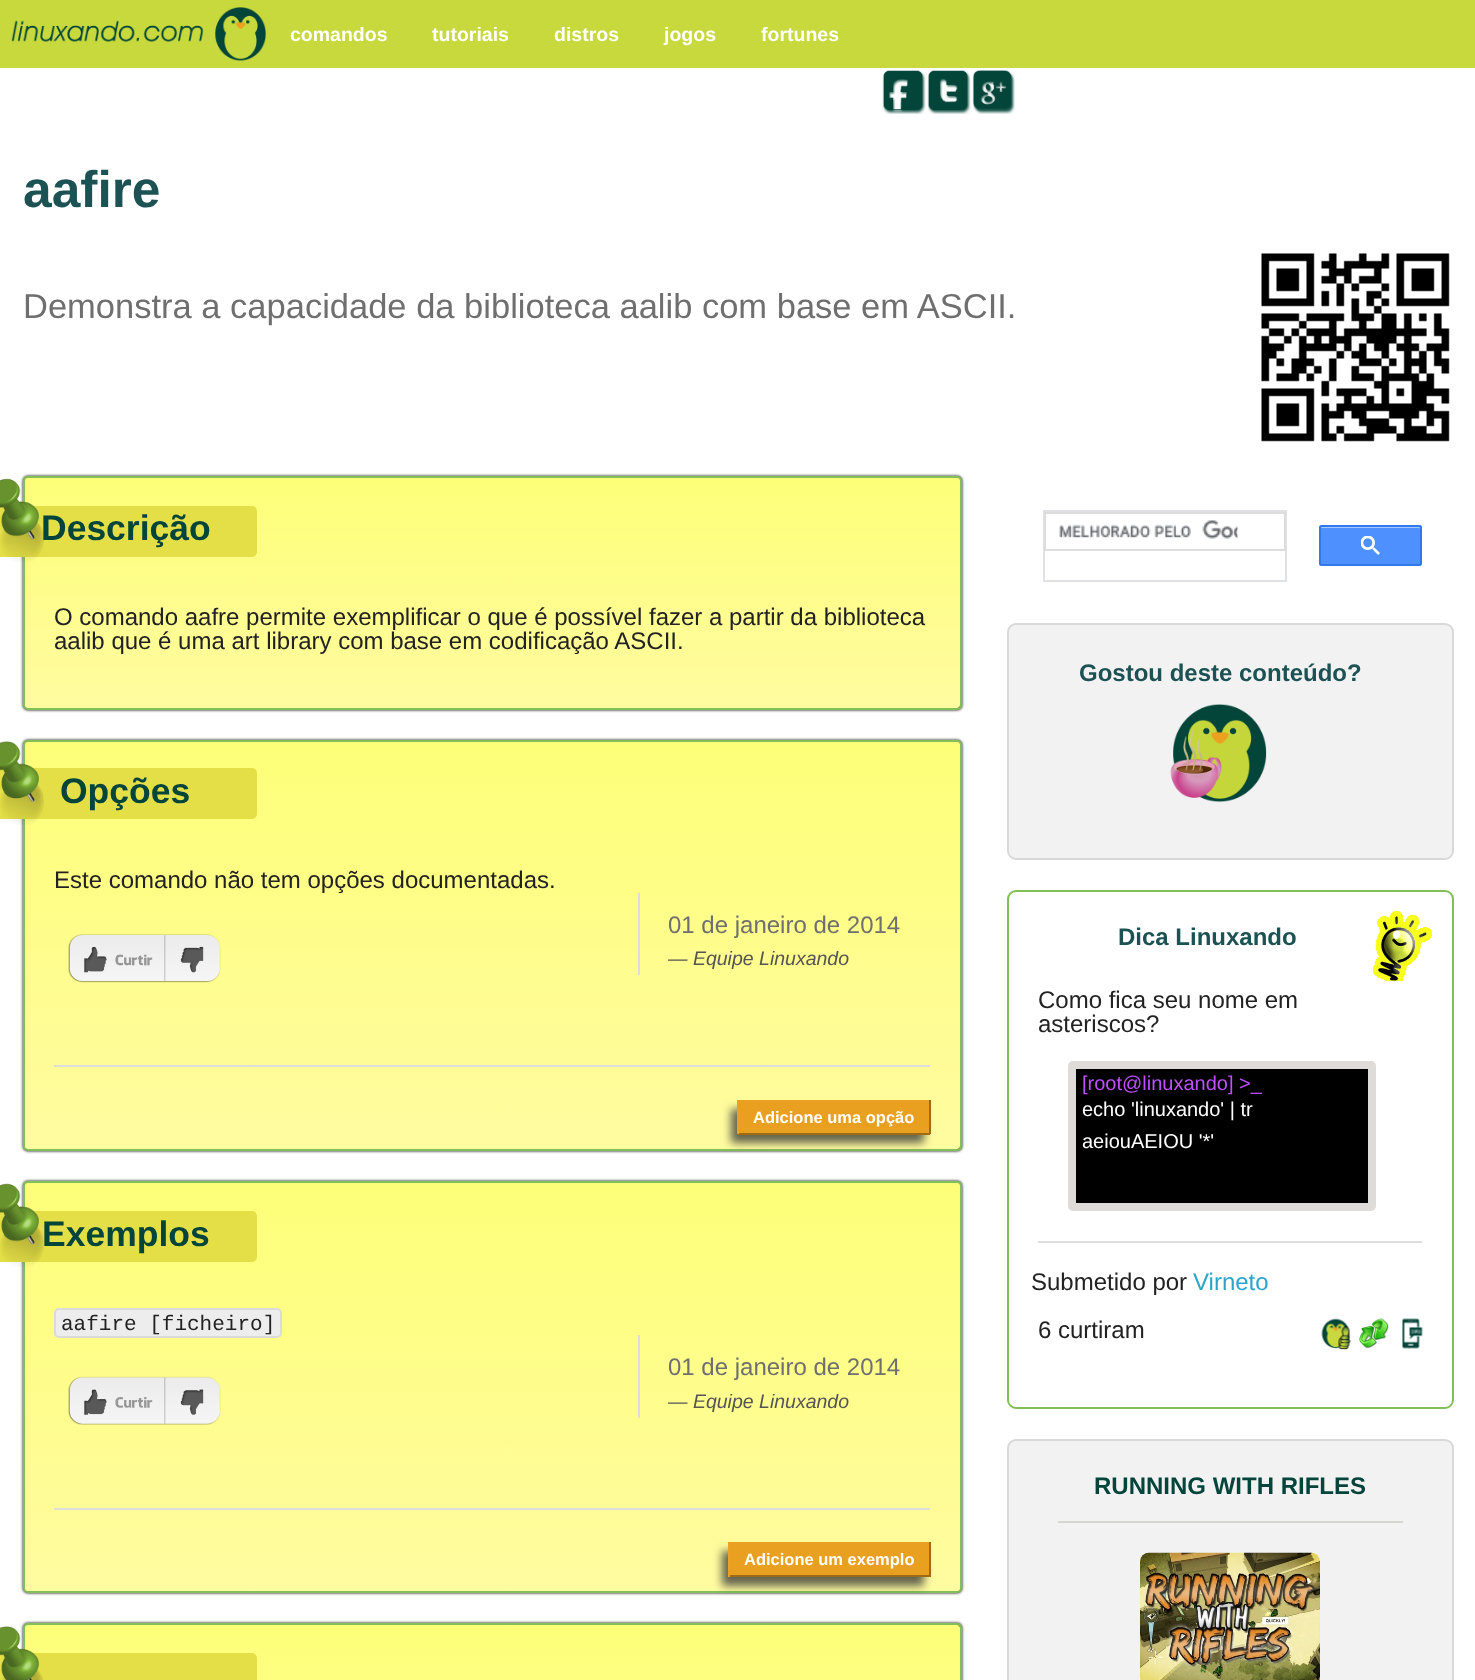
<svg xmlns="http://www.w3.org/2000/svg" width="1475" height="1680">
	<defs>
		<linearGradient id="g1" gradientUnits="userSpaceOnUse" x1="492" y1="477" x2="492" y2="708"><stop offset="0" stop-color="#FDFF78" /><stop offset="1" stop-color="#FFFBA0" /></linearGradient>
		<linearGradient id="g2" gradientUnits="userSpaceOnUse" x1="492" y1="741" x2="492" y2="1149"><stop offset="0" stop-color="#FDFF78" /><stop offset="1" stop-color="#FFFBA0" /></linearGradient>
		<linearGradient id="g3" gradientUnits="userSpaceOnUse" x1="492" y1="1182" x2="492" y2="1592"><stop offset="0" stop-color="#FDFF78" /><stop offset="1" stop-color="#FFFBA0" /></linearGradient>
		<linearGradient id="g4" gradientUnits="userSpaceOnUse" x1="492" y1="1625" x2="492" y2="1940"><stop offset="0" stop-color="#FDFF78" /><stop offset="1" stop-color="#FFFBA0" /></linearGradient>
	</defs>
	<rect width="100%" height="100%" fill="#FFFFFF" />
	<rect x="0" y="0" width="1475" height="68" fill="#C7D93D" />
	<image x="11" y="7" width="256" height="54" href="assets/img1.png" />
	<g font-family="Liberation Sans" font-size="19.5" font-weight="700" fill="#FFFFFF">
		<text x="290" y="41">comandos</text>
		<text x="432" y="41">tutoriais</text>
		<text x="554" y="41">distros</text>
		<text x="664" y="41">jogos</text>
		<text x="761" y="41">fortunes</text>
	</g>
	<image x="882" y="70" width="44" height="44" href="assets/img2.png" />
	<image x="927" y="70" width="44" height="44" href="assets/img3.png" />
	<image x="972" y="70" width="43" height="44" href="assets/img4.png" />
	<text x="23" y="207" font-family="Liberation Sans" font-size="51.5" font-weight="700" fill="#1C5253">aafire</text>
	<text x="23" y="318" font-family="Liberation Sans" font-size="34.5" fill="#6F6F6F">Demonstra a capacidade da biblioteca aalib com base em ASCII.</text>
	<image x="1261" y="253" width="189" height="189" href="assets/img5.png" />
	<rect x="23" y="476" width="939" height="234" rx="5" fill="#000000" filter="blur(1.5px)" />
	<rect x="24" y="477" width="936" height="231" rx="3" fill="url(#g1)" />
	<rect x="24" y="477" width="937" height="232" rx="4" fill="none" stroke="#82BF56" stroke-width="2" />
	<rect x="-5" y="506" width="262" height="51" rx="5" fill="#E4DF46" />
	<text x="41" y="540" font-family="Liberation Sans" font-size="35.5" font-weight="700" fill="#03453B">Descrição</text>
	<image x="0" y="478" width="44" height="84" href="assets/img6.png" />
	<g font-family="Liberation Sans" font-size="24" fill="#222222">
		<text x="54" y="625">O comando aafre permite exemplificar o que é possível fazer a partir da biblioteca</text>
		<text x="54" y="649">aalib que é uma art library com base em codificação ASCII.</text>
	</g>
	<rect x="23" y="740" width="939" height="411" rx="5" fill="#000000" filter="blur(1.5px)" />
	<rect x="24" y="741" width="936" height="408" rx="3" fill="url(#g2)" />
	<rect x="24" y="741" width="937" height="409" rx="4" fill="none" stroke="#82BF56" stroke-width="2" />
	<rect x="-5" y="768" width="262" height="51" rx="5" fill="#E4DF46" />
	<image x="0" y="741" width="44" height="84" href="assets/img7.png" />
	<text x="60" y="803" font-family="Liberation Sans" font-size="35.5" font-weight="700" fill="#03453B">Opções</text>
	<text x="54" y="888" font-family="Liberation Sans" font-size="24" fill="#222222">Este comando não tem opções documentadas.</text>
	<image x="68" y="934" width="97" height="49" href="assets/img8.png" />
	<image x="165" y="934" width="56" height="49" href="assets/img9.png" />
	<rect x="638" y="893" width="2" height="82" fill="#DDDDDD" />
	<text x="668" y="933" font-family="Liberation Sans" font-size="24" fill="#6F6F6F">01 de janeiro de 2014</text>
	<text x="668" y="965" font-family="Liberation Sans" font-size="19.5" font-style="italic" fill="#555555">— Equipe Linuxando</text>
	<rect x="54" y="1065" width="876" height="2" fill="#DDDDDD" />
	<rect x="731" y="1109" width="193" height="34" fill="#323232" fill-opacity="0.75" filter="blur(4px)" />
	<rect x="739" y="1102" width="190" height="31" fill="#E9A020" />
	<rect x="737" y="1100" width="193" height="2" fill="#E9A023" />
	<rect x="929" y="1100" width="2" height="34" fill="#9B6B17" />
	<rect x="737" y="1133" width="193" height="2" fill="#9B6B17" />
	<rect x="737" y="1100" width="2" height="34" fill="#E9A023" />
	<text x="753" y="1123" font-family="Liberation Sans" font-size="16.5" font-weight="700" fill="#FFFFFF">Adicione uma opção</text>
	<rect x="23" y="1181" width="939" height="412" rx="5" fill="#000000" filter="blur(1.5px)" />
	<rect x="24" y="1182" width="936" height="410" rx="3" fill="url(#g3)" />
	<rect x="24" y="1182" width="937" height="410" rx="4" fill="none" stroke="#82BF56" stroke-width="2" />
	<rect x="-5" y="1211" width="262" height="51" rx="5" fill="#E4DF46" />
	<image x="0" y="1183" width="44" height="84" href="assets/img10.png" />
	<text x="42" y="1246" font-family="Liberation Sans" font-size="35.5" font-weight="700" fill="#03453B">Exemplos</text>
	<rect x="55" y="1309" width="226" height="28" rx="4" fill="#EDEDED" stroke="#DBDBDB" stroke-width="2" />
	<text x="61" y="1330" font-family="Liberation Mono" font-size="21" fill="#222222">aafire [ficheiro]</text>
	<image x="68" y="1376" width="97" height="49" href="assets/img11.png" />
	<image x="165" y="1376" width="56" height="49" href="assets/img12.png" />
	<rect x="638" y="1335" width="2" height="83" fill="#DDDDDD" />
	<text x="668" y="1375" font-family="Liberation Sans" font-size="24" fill="#6F6F6F">01 de janeiro de 2014</text>
	<text x="668" y="1408" font-family="Liberation Sans" font-size="19.5" font-style="italic" fill="#555555">— Equipe Linuxando</text>
	<rect x="54" y="1508" width="876" height="2" fill="#DDDDDD" />
	<rect x="722" y="1551" width="202" height="35" fill="#323232" fill-opacity="0.75" filter="blur(4px)" />
	<rect x="730" y="1544" width="199" height="31" fill="#E9A020" />
	<rect x="728" y="1542" width="202" height="2" fill="#E9A023" />
	<rect x="929" y="1542" width="2" height="35" fill="#9B6B17" />
	<rect x="728" y="1575" width="202" height="2" fill="#9B6B17" />
	<rect x="728" y="1542" width="2" height="35" fill="#E9A023" />
	<text x="744" y="1565" font-family="Liberation Sans" font-size="16.5" font-weight="700" fill="#FFFFFF">Adicione um exemplo</text>
	<rect x="23" y="1623" width="939" height="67" rx="5" fill="#000000" filter="blur(1.5px)" />
	<rect x="24" y="1625" width="936" height="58" rx="3" fill="url(#g4)" />
	<rect x="24" y="1624" width="937" height="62" rx="4" fill="none" stroke="#82BF56" stroke-width="2" />
	<rect x="-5" y="1653" width="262" height="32" rx="5" fill="#E4DF46" />
	<image x="0" y="1626" width="43" height="54" href="assets/img13.png" />
	<rect x="1044" y="511" width="242" height="70" fill="none" stroke="#DFE1E5" stroke-width="2" />
	<rect x="1045" y="513" width="240" height="37" fill="none" stroke="#DDDDDD" stroke-width="2" />
	<image x="1059" y="520" width="179" height="19" href="assets/img14.png" />
	<rect x="1319" y="525" width="103" height="41" rx="3" fill="#4D90FE" />
	<path d="M1322 528H1419C1420 528 1420 529 1420 530V564C1422 563 1421 543 1421 540C1421 522 1424 527 1403 527H1338C1332 527 1320 522 1320 530C1320 529 1321 528 1322 528Z" fill="#A6C8FF" />
	<rect x="1320" y="526" width="101" height="39" rx="2" fill="none" stroke="#3079ED" stroke-width="2" />
	<image x="1361" y="536" width="19" height="19" href="assets/img15.png" />
	<rect x="1008" y="624" width="445" height="235" rx="8" fill="#F2F2F2" stroke="#D9D9D9" stroke-width="2" />
	<text x="1079" y="681" font-family="Liberation Sans" font-size="24" font-weight="700" fill="#1C5253">Gostou deste conteúdo?</text>
	<image x="1170" y="704" width="97" height="99" href="assets/img16.png" />
	<rect x="1008" y="891" width="445" height="517" rx="8" fill="none" stroke="#82BF56" stroke-width="2" />
	<text x="1118" y="945" font-family="Liberation Sans" font-size="24" font-weight="700" fill="#1C5253">Dica Linuxando</text>
	<g font-family="Liberation Sans" font-size="24" fill="#222222">
		<text x="1038" y="1008">Como fica seu nome em</text>
		<text x="1038" y="1032">asteriscos?</text>
	</g>
	<rect x="1072" y="1065" width="300" height="142" rx="1" fill="#000000" stroke="#DEDBD9" stroke-width="8" />
	<text x="1082" y="1090" font-family="Liberation Sans" font-size="20" fill="#BF4FFF">[root@linuxando] &gt;_</text>
	<g font-family="Liberation Sans" font-size="20" fill="#FFFFFF">
		<text x="1082" y="1116">echo 'linuxando' | tr</text>
		<text x="1082" y="1148">aeiouAEIOU '*'</text>
	</g>
	<rect x="1038" y="1241" width="384" height="2" fill="#DDDDDD" />
	<text x="1031" y="1290" font-family="Liberation Sans" font-size="24" fill="#222222">Submetido por</text>
	<text x="1193" y="1290" font-family="Liberation Sans" font-size="24" fill="#2BA6CB">Virneto</text>
	<text x="1038" y="1338" font-family="Liberation Sans" font-size="24" fill="#222222">6 curtiram</text>
	<image x="1321" y="1318" width="30" height="32" href="assets/img17.png" />
	<image x="1359" y="1318" width="30" height="31" href="assets/img18.png" />
	<image x="1402" y="1318" width="21" height="31" href="assets/img19.png" />
	<image x="1373" y="911" width="59" height="70" href="assets/img20.png" />
	<rect x="1008" y="1440" width="445" height="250" rx="8" fill="#F2F2F2" stroke="#D9D9D9" stroke-width="2" />
	<rect x="1058" y="1521" width="345" height="2" fill="#D3D7CF" />
	<text x="1094" y="1494" font-family="Liberation Sans" font-size="24" font-weight="700" fill="#03453B">RUNNING WITH RIFLES</text>
	<image x="1140" y="1552" width="180" height="128" href="assets/img21.png" />
</svg>
